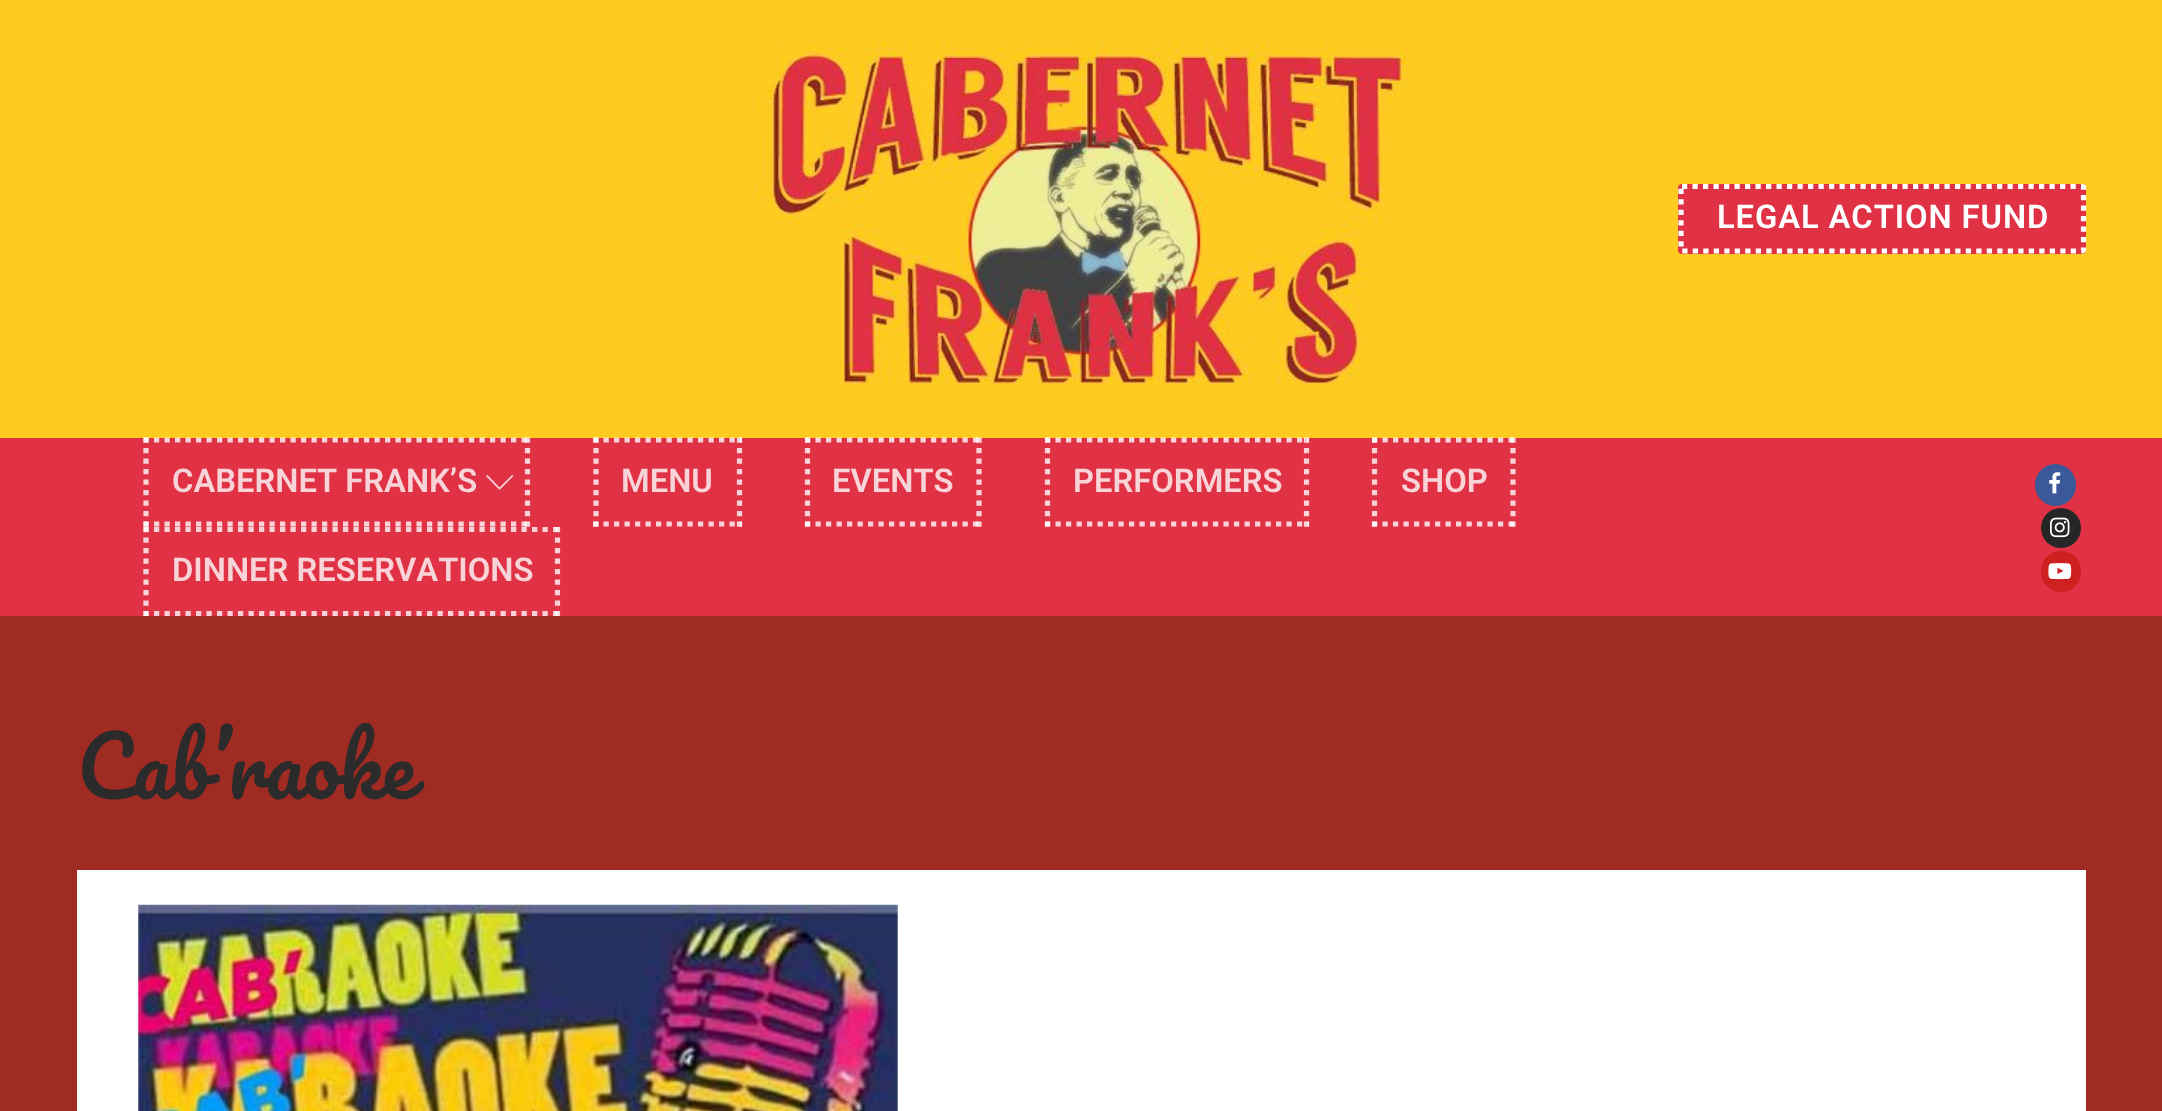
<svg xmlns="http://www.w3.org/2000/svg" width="2162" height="1111">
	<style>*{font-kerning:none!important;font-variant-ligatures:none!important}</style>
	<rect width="100%" height="100%" fill="#9F2B23" />
	<rect x="0" y="0" width="2162" height="438" fill="#FFCB21" />
	<image x="754" y="43" width="656" height="341" href="assets/img1.png" />
	<rect x="1678" y="184" width="408" height="70" rx="4" fill="#E03244" />
	<path d="M1682 186.5H2082.5L2083.5 187V250L2082.5 251H1682L1681 250V187Z" fill="none" stroke="#FFFFFF" stroke-width="5.2" stroke-dasharray="5.25 5.25" />
	<text x="1717" y="228" font-family="Roboto" font-size="32.75" font-weight="600" letter-spacing="0.9" fill="#FFFFFF">LEGAL ACTION FUND</text>
	<rect x="0" y="438" width="2162" height="178" fill="#E03244" />
	<path d="M143.5 440H530" fill="none" stroke="#FFFFFF" stroke-opacity="0.79" stroke-width="5.2" stroke-dasharray="5.25 5.25" />
	<path d="M527.5 437.5V527" fill="none" stroke="#FFFFFF" stroke-opacity="0.79" stroke-width="5.2" stroke-dasharray="5.25 5.25" />
	<path d="M143.5 524H530" fill="none" stroke="#FFFFFF" stroke-opacity="0.79" stroke-width="5.2" stroke-dasharray="5.25 5.25" />
	<path d="M146 437.5V527" fill="none" stroke="#FFFFFF" stroke-opacity="0.79" stroke-width="5.2" stroke-dasharray="5.25 5.25" />
	<text x="172" y="492" font-family="Roboto" font-size="32.75" font-weight="600" fill="#F8D4D8">CABERNET FRANK’S</text>
	<path d="M499.5 490L486 476L487.5 475L499.5 487.5Z" fill="#F8D4D8" />
	<path d="M513.5 476L499.5 490V487.5L512 475Z" fill="#FFFFFF" fill-opacity="0.79" />
	<path d="M593 440H742" fill="none" stroke="#FFFFFF" stroke-opacity="0.79" stroke-width="5.2" stroke-dasharray="5.25 5.25" />
	<path d="M739.5 437.5V527" fill="none" stroke="#FFFFFF" stroke-opacity="0.79" stroke-width="5.2" stroke-dasharray="5.25 5.25" />
	<path d="M593 524H742" fill="none" stroke="#FFFFFF" stroke-opacity="0.79" stroke-width="5.2" stroke-dasharray="5.25 5.25" />
	<path d="M596 437.5V527" fill="none" stroke="#FFFFFF" stroke-opacity="0.79" stroke-width="5.2" stroke-dasharray="5.25 5.25" />
	<text x="621" y="492" font-family="Roboto" font-size="32.75" font-weight="600" fill="#F8D4D8">MENU</text>
	<path d="M805 440H982" fill="none" stroke="#FFFFFF" stroke-opacity="0.79" stroke-width="5.2" stroke-dasharray="5.25 5.25" />
	<path d="M979 437.5V527" fill="none" stroke="#FFFFFF" stroke-opacity="0.79" stroke-width="5.2" stroke-dasharray="5.25 5.25" />
	<path d="M805 524H982" fill="none" stroke="#FFFFFF" stroke-opacity="0.79" stroke-width="5.2" stroke-dasharray="5.25 5.25" />
	<path d="M807.5 437.5V527" fill="none" stroke="#FFFFFF" stroke-opacity="0.79" stroke-width="5.2" stroke-dasharray="5.25 5.25" />
	<text x="832" y="492" font-family="Roboto" font-size="32.75" font-weight="600" fill="#F8D4D8">EVENTS</text>
	<path d="M1045 440H1309" fill="none" stroke="#FFFFFF" stroke-opacity="0.79" stroke-width="5.2" stroke-dasharray="5.25 5.25" />
	<path d="M1306.5 437.5V527" fill="none" stroke="#FFFFFF" stroke-opacity="0.79" stroke-width="5.2" stroke-dasharray="5.25 5.25" />
	<path d="M1045 524H1309" fill="none" stroke="#FFFFFF" stroke-opacity="0.79" stroke-width="5.2" stroke-dasharray="5.25 5.25" />
	<path d="M1047.5 437.5V527" fill="none" stroke="#FFFFFF" stroke-opacity="0.79" stroke-width="5.2" stroke-dasharray="5.25 5.25" />
	<text x="1073" y="492" font-family="Roboto" font-size="32.75" font-weight="600" fill="#F8D4D8">PERFORMERS</text>
	<path d="M1372 440H1515.5" fill="none" stroke="#FFFFFF" stroke-opacity="0.79" stroke-width="5.2" stroke-dasharray="5.25 5.25" />
	<path d="M1513 437.5V527" fill="none" stroke="#FFFFFF" stroke-opacity="0.79" stroke-width="5.2" stroke-dasharray="5.25 5.25" />
	<path d="M1372 524H1515.5" fill="none" stroke="#FFFFFF" stroke-opacity="0.79" stroke-width="5.2" stroke-dasharray="5.25 5.25" />
	<path d="M1374.5 437.5V527" fill="none" stroke="#FFFFFF" stroke-opacity="0.79" stroke-width="5.2" stroke-dasharray="5.25 5.25" />
	<text x="1401" y="492" font-family="Roboto" font-size="32.75" font-weight="600" fill="#F8D4D8">SHOP</text>
	<path d="M143.5 529.5H560" fill="none" stroke="#F8D4D8" stroke-width="5.2" stroke-dasharray="5.25 5.25" />
	<path d="M557.5 527V616" fill="none" stroke="#FFFFFF" stroke-opacity="0.79" stroke-width="5.2" stroke-dasharray="5.25 5.25" />
	<path d="M143.5 613.5H560" fill="none" stroke="#FFFFFF" stroke-opacity="0.79" stroke-width="5.2" stroke-dasharray="5.25 5.25" />
	<path d="M146 527V616" fill="none" stroke="#FFFFFF" stroke-opacity="0.79" stroke-width="5.2" stroke-dasharray="5.25 5.25" />
	<text x="172" y="581" font-family="Roboto" font-size="32.75" font-weight="600" fill="#F8D4D8">DINNER RESERVATIONS</text>
	<rect x="2035" y="464" width="41" height="42" rx="20.5" fill="#3B5998" />
	<image x="2049" y="472" width="12" height="22" href="assets/img2.png" />
	<circle cx="2061" cy="528" r="20" fill="#262626" />
	<image x="2050" y="517" width="20" height="21" href="assets/img3.png" />
	<rect x="2041" y="551" width="40" height="41" rx="20" fill="#CD201F" />
	<image x="2048" y="563" width="24" height="17" href="assets/img4.png" />
	<text x="77" y="799" font-family="Pacifico" font-size="81" fill="#2B2B2B">Cab’raoke</text>
	<rect x="77" y="870" width="2009" height="241" fill="#FFFFFF" />
	<image x="138" y="904" width="760" height="207" href="assets/img5.png" />
</svg>
